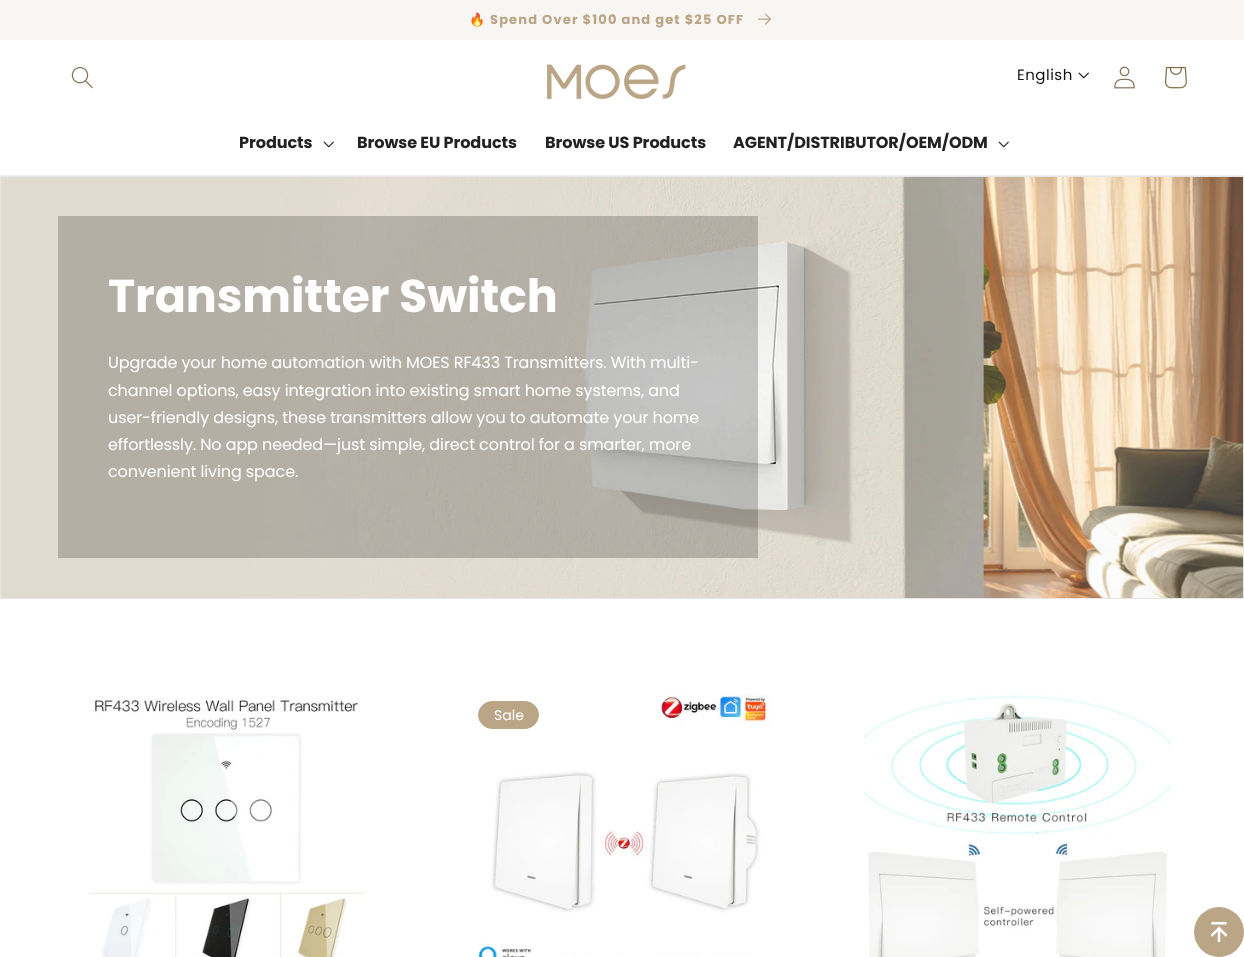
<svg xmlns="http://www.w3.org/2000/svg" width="1244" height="957">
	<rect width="100%" height="100%" fill="#FFFFFF" />
	<rect x="0" y="0" width="1244" height="40" fill="#F8F6F3" />
	<text x="469" y="24" font-family="Noto Color Emoji" font-size="13" font-weight="700" letter-spacing="1.15" fill="#BAA586">🔥</text>
	<text x="490" y="24" font-family="Poppins" font-size="13" font-weight="700" letter-spacing="1.15" fill="#BAA586">Spend Over $100 and get $25 OFF</text>
	<image x="758" y="13" width="13" height="12" href="assets/img1.png" />
	<rect x="0" y="175" width="1244" height="1" fill="#ECECEC" />
	<image x="71" y="67" width="22" height="22" href="assets/img2.png" />
	<image x="547" y="64" width="139" height="35" href="assets/img3.png" />
	<text x="1017" y="80" font-family="Poppins" font-size="15" letter-spacing="0.5" fill="#121212">English</text>
	<image x="1078" y="72" width="11" height="7" href="assets/img4.png" />
	<image x="1114" y="66" width="21" height="23" href="assets/img5.png" />
	<image x="1164" y="66" width="23" height="23" href="assets/img6.png" />
	<text x="239" y="148" font-family="Poppins" font-size="16.1" font-weight="700" letter-spacing="-0.1" fill="#222222">Products</text>
	<image x="323" y="141" width="11" height="7" href="assets/img7.png" />
	<g font-family="Poppins" font-size="16.1" font-weight="700" letter-spacing="-0.1" fill="#222222">
		<text x="357" y="148">Browse EU Products</text>
		<text x="545" y="148">Browse US Products</text>
		<text x="733" y="148">AGENT/DISTRIBUTOR/OEM/ODM</text>
	</g>
	<image x="998" y="141" width="11" height="7" href="assets/img7.png" />
	<rect x="0.5" y="176.5" width="1243" height="422" fill="none" stroke="#E6E6E6" />
	<image x="1" y="177" width="1242" height="421" href="assets/img8.png" />
	<rect x="58" y="216" width="700" height="342" fill="#000000" fill-opacity="0.2" />
	<text x="108" y="312" font-family="Poppins" font-size="46" font-weight="700" letter-spacing="-0.1" fill="#FFFFFF">Transmitter Switch</text>
	<g font-family="Poppins" font-size="16" letter-spacing="-0.1" fill="#FFFFFF">
		<text x="108" y="368">Upgrade your home automation with MOES RF433 Transmitters. With multi-</text>
		<text x="108" y="396">channel options, easy integration into existing smart home systems, and</text>
		<text x="108" y="423">user-friendly designs, these transmitters allow you to automate your home</text>
		<text x="108" y="450">effortlessly. No app needed—just simple, direct control for a smarter, more</text>
		<text x="108" y="477">convenient living space.</text>
	</g>
	<image x="73" y="688" width="307" height="269" href="assets/img9.png" />
	<image x="468" y="688" width="308" height="269" href="assets/img10.png" />
	<rect x="478.5" y="701.5" width="60" height="27" rx="13.5" fill="#BAA586" stroke="#BAA586" />
	<text x="494" y="720" font-family="Poppins" font-size="14" fill="#FFFFFF">Sale</text>
	<image x="864" y="688" width="307" height="269" href="assets/img11.png" />
	<circle cx="1219" cy="932" r="25" fill="#BAA586" />
	<image x="1210" y="922" width="18" height="20" href="assets/img12.png" />
</svg>
